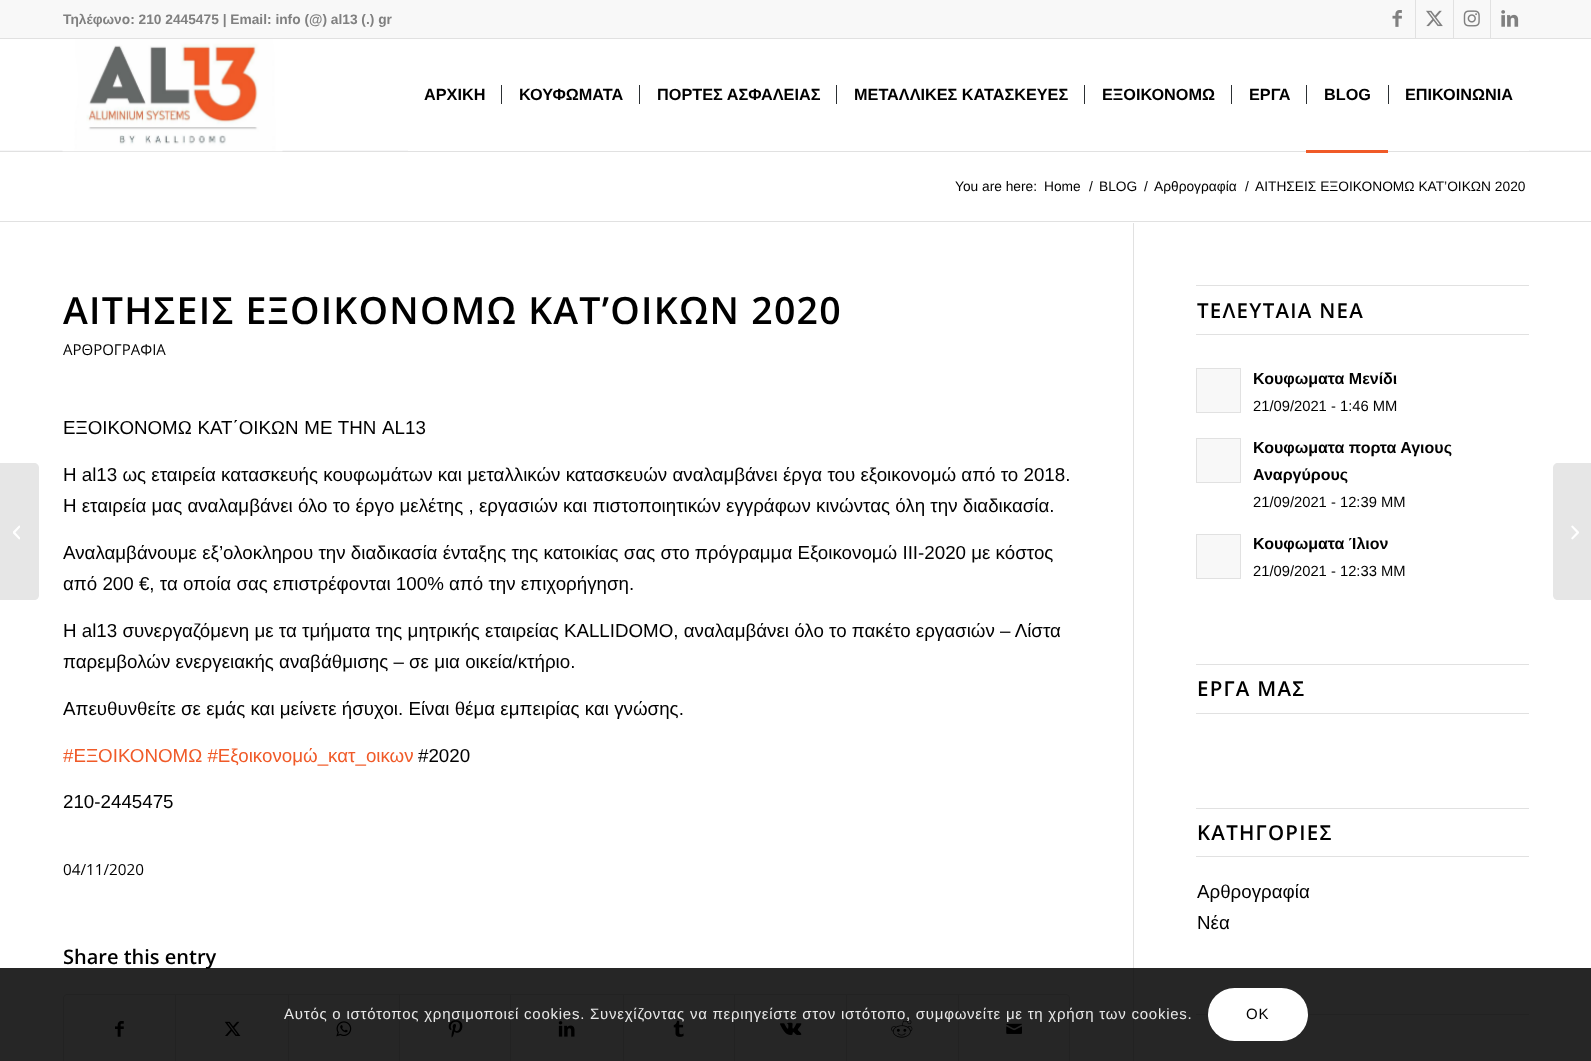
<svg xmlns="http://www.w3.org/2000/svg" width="1591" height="1061">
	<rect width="100%" height="100%" fill="#FFFFFF" />
	<rect x="0" y="0" width="1591" height="38" fill="#F8F8F8" />
	<rect x="0" y="38" width="1591" height="1" fill="#E1E1E1" />
	<text x="63" y="24" font-family="Liberation Sans" font-size="13.75" font-weight="700" fill="#808080">Τηλέφωνο: 210 2445475 | Email: info (@) al13 (.) gr</text>
	<rect x="1415" y="0" width="1" height="38" fill="#E1E1E1" />
	<image x="1392" y="10" width="10" height="17" href="assets/img1.png" />
	<rect x="1453" y="0" width="1" height="38" fill="#E1E1E1" />
	<image x="1426" y="10" width="17" height="17" href="assets/img2.png" />
	<rect x="1490" y="0" width="1" height="38" fill="#E1E1E1" />
	<image x="1463" y="10" width="17" height="17" href="assets/img3.png" />
	<image x="1501" y="10" width="18" height="17" href="assets/img4.png" />
	<rect x="0" y="151" width="1591" height="1" fill="#E1E1E1" />
	<rect x="0" y="150" width="1591" height="1" fill="#F7F7F8" />
	<image x="62" y="39" width="221" height="113" href="assets/img5.png" />
	<rect x="408" y="150" width="898" height="1" fill="#FFFFFF" />
	<g font-family="Liberation Sans" font-size="16.25" font-weight="700" fill="#000000">
		<text x="424" y="100">ΑΡΧΙΚΗ</text>
		<text x="519" y="100">ΚΟΥΦΩΜΑΤΑ</text>
	</g>
	<rect x="501" y="85" width="1" height="19" fill="#2C3033" />
	<text x="657" y="100" font-family="Liberation Sans" font-size="16.25" font-weight="700" fill="#000000">ΠΟΡΤΕΣ ΑΣΦΑΛΕΙΑΣ</text>
	<rect x="639" y="85" width="1" height="19" fill="#2C3033" />
	<text x="854" y="100" font-family="Liberation Sans" font-size="16.25" font-weight="700" fill="#000000">ΜΕΤΑΛΛΙΚΕΣ ΚΑΤΑΣΚΕΥΕΣ</text>
	<rect x="836" y="85" width="1" height="19" fill="#2C3033" />
	<text x="1102" y="100" font-family="Liberation Sans" font-size="16.25" font-weight="700" fill="#000000">ΕΞΟΙΚΟΝΟΜΩ</text>
	<rect x="1084" y="85" width="1" height="19" fill="#2C3033" />
	<text x="1249" y="100" font-family="Liberation Sans" font-size="16.25" font-weight="700" fill="#000000">ΕΡΓΑ</text>
	<rect x="1231" y="85" width="1" height="19" fill="#2C3033" />
	<text x="1324" y="100" font-family="Liberation Sans" font-size="16.25" font-weight="700" fill="#000000">BLOG</text>
	<rect x="1306" y="85" width="1" height="19" fill="#2C3033" />
	<rect x="1306" y="150" width="82" height="3" fill="#F05A28" />
	<rect x="1388" y="150" width="141" height="1" fill="#FFFFFF" />
	<text x="1405" y="100" font-family="Liberation Sans" font-size="16.25" font-weight="700" fill="#000000">ΕΠΙΚΟΙΝΩΝΙΑ</text>
	<rect x="1388" y="85" width="1" height="19" fill="#2C3033" />
	<path d="M0 463H34C37 463 39 465 39 468V595C39 598 37 600 34 600H0Z" fill="#E6E6E6" />
	<image x="13" y="525" width="7" height="15" href="assets/img6.png" />
	<g font-family="Liberation Sans" font-size="13.75" fill="#000000">
		<text x="955" y="191">You are here:</text>
		<text x="1044" y="191">Home</text>
		<text x="1089" y="191">/</text>
		<text x="1099" y="191">BLOG</text>
		<text x="1144" y="191">/</text>
		<text x="1154" y="191">Αρθρογραφία</text>
		<text x="1245" y="191">/</text>
		<text x="1255" y="191">ΑΙΤΗΣΕΙΣ ΕΞΟΙΚΟΝΟΜΩ ΚΑΤ’ΟΙΚΩΝ 2020</text>
	</g>
	<rect x="0" y="221" width="1591" height="1" fill="#E1E1E1" />
	<rect x="1133" y="223" width="1" height="838" fill="#E1E1E1" />
	<text x="63" y="324" font-family="Open Sans" font-size="37.5" font-weight="600" letter-spacing="1.25" fill="#000000">ΑΙΤΗΣΕΙΣ ΕΞΟΙΚΟΝΟΜΩ ΚΑΤ’ΟΙΚΩΝ 2020</text>
	<text x="63" y="355" font-family="Open Sans" font-size="15" fill="#000000">ΑΡΘΡΟΓΡΑΦΙΑ</text>
	<g font-family="Liberation Sans" font-size="18.75" fill="#000000">
		<text x="63" y="434" word-spacing="0.5">ΕΞΟΙΚΟΝΟΜΩ ΚΑΤ΄ΟΙΚΩΝ ΜΕ ΤΗΝ AL13</text>
		<text x="63" y="481">Η al13 ως εταιρεία κατασκευής κουφωμάτων και μεταλλικών κατασκευών αναλαμβάνει έργα του εξοικονομώ από το 2018.</text>
		<text x="63" y="512">Η εταιρεία μας αναλαμβάνει όλο το έργο μελέτης , εργασιών και πιστοποιητικών εγγράφων κινώντας όλη την διαδικασία.</text>
		<text x="63" y="559">Αναλαμβάνουμε εξ’ολοκληρου την διαδικασία ένταξης της κατοικίας σας στο πρόγραμμα Εξοικονομώ ΙΙΙ-2020 με κόστος</text>
		<text x="63" y="590">από 200 €, τα οποία σας επιστρέφονται 100% από την επιχορήγηση.</text>
		<text x="63" y="637">Η al13 συνεργαζόμενη με τα τμήματα της μητρικής εταιρείας KALLIDOMO, αναλαμβάνει όλο το πακέτο εργασιών – Λίστα</text>
		<text x="63" y="668">παρεμβολών ενεργειακής αναβάθμισης – σε μια οικεία/κτήριο.</text>
		<text x="63" y="715">Απευθυνθείτε σε εμάς και μείνετε ήσυχοι. Είναι θέμα εμπειρίας και γνώσης.</text>
	</g>
	<text x="63" y="762" font-family="Liberation Sans" font-size="18.75" fill="#F05A28">#ΕΞΟΙΚΟΝΟΜΩ #Εξοικονομώ_κατ_οικων</text>
	<g font-family="Liberation Sans" font-size="18.75" fill="#000000">
		<text x="418" y="762">#2020</text>
		<text x="63" y="808">210-2445475</text>
	</g>
	<text x="63" y="875" font-family="Open Sans" font-size="15.25" fill="#000000">04/11/2020</text>
	<text x="63" y="964" font-family="Open Sans" font-size="20" font-weight="600" fill="#000000">Share this entry</text>
	<rect x="63.5" y="994.5" width="1006" height="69" rx="3.5" fill="none" stroke="#E1E1E1" />
	<image x="115" y="1021" width="9" height="16" href="assets/img7.png" />
	<rect x="175" y="995" width="1" height="66" fill="#E1E1E1" />
	<image x="224" y="1021" width="17" height="15" href="assets/img8.png" />
	<rect x="288" y="995" width="1" height="66" fill="#E1E1E1" />
	<image x="336" y="1021" width="16" height="16" href="assets/img9.png" />
	<rect x="399" y="995" width="1" height="66" fill="#E1E1E1" />
	<image x="448" y="1020" width="15" height="18" href="assets/img10.png" />
	<rect x="510" y="995" width="1" height="66" fill="#E1E1E1" />
	<image x="558" y="1021" width="17" height="16" href="assets/img11.png" />
	<rect x="623" y="995" width="1" height="66" fill="#E1E1E1" />
	<image x="673" y="1020" width="11" height="17" href="assets/img12.png" />
	<rect x="734" y="995" width="1" height="66" fill="#E1E1E1" />
	<image x="780" y="1022" width="22" height="13" href="assets/img13.png" />
	<rect x="846" y="995" width="1" height="66" fill="#E1E1E1" />
	<image x="891" y="1020" width="22" height="18" href="assets/img14.png" />
	<rect x="958" y="995" width="1" height="66" fill="#E1E1E1" />
	<image x="1006" y="1023" width="16" height="11" href="assets/img15.png" />
	<rect x="1196" y="285" width="333" height="1" fill="#E1E1E1" />
	<rect x="1196" y="334" width="333" height="1" fill="#E1E1E1" />
	<text x="1197" y="318" font-family="Open Sans" font-size="20.5" font-weight="600" letter-spacing="1.25" fill="#000000">ΤΕΛΕΥΤΑΙΑ ΝΕΑ</text>
	<rect x="1196.5" y="368.5" width="44" height="44" fill="#F8F8F8" stroke="#E1E1E1" />
	<text x="1253" y="384" font-family="Liberation Sans" font-size="16" font-weight="700" fill="#000000">Κουφωματα Μενίδι</text>
	<text x="1253" y="411" font-family="Liberation Sans" font-size="14.75" fill="#000000">21/09/2021 - 1:46 ΜΜ</text>
	<rect x="1196.5" y="438.5" width="44" height="44" fill="#F8F8F8" stroke="#E1E1E1" />
	<g font-family="Liberation Sans" font-size="16" font-weight="700" fill="#000000">
		<text x="1253" y="453">Κουφωματα πορτα Αγιους</text>
		<text x="1253" y="480">Αναργύρους</text>
	</g>
	<text x="1253" y="507" font-family="Liberation Sans" font-size="14.75" fill="#000000">21/09/2021 - 12:39 ΜΜ</text>
	<rect x="1196.5" y="534.5" width="44" height="44" fill="#F8F8F8" stroke="#E1E1E1" />
	<text x="1253" y="549" font-family="Liberation Sans" font-size="16" font-weight="700" fill="#000000">Κουφωματα Ίλιον</text>
	<text x="1253" y="576" font-family="Liberation Sans" font-size="14.75" fill="#000000">21/09/2021 - 12:33 ΜΜ</text>
	<rect x="1196" y="664" width="333" height="1" fill="#E1E1E1" />
	<rect x="1196" y="713" width="333" height="1" fill="#E1E1E1" />
	<text x="1197" y="696" font-family="Open Sans" font-size="20.5" font-weight="600" letter-spacing="1.25" fill="#000000">ΕΡΓΑ ΜΑΣ</text>
	<rect x="1196" y="808" width="333" height="1" fill="#E1E1E1" />
	<rect x="1196" y="856" width="333" height="1" fill="#E1E1E1" />
	<text x="1197" y="840" font-family="Open Sans" font-size="20.5" font-weight="600" letter-spacing="1.25" fill="#000000">ΚΑΤΗΓΟΡΙΕΣ</text>
	<g font-family="Liberation Sans" font-size="18.75" fill="#000000">
		<text x="1197" y="898">Αρθρογραφία</text>
		<text x="1197" y="929">Νέα</text>
	</g>
	<rect x="1196" y="1014" width="333" height="1" fill="#E1E1E1" />
	<path d="M1558 463H1591V600H1558C1555 600 1553 598 1553 595V468C1553 465 1555 463 1558 463Z" fill="#E6E6E6" />
	<image x="1571" y="525" width="8" height="15" href="assets/img16.png" />
	<rect x="0" y="968" width="1591" height="93" fill="#000000" fill-opacity="0.85" />
	<text x="284" y="1019" font-family="Liberation Sans" font-size="15" letter-spacing="0.75" fill="#E9E9E9">Αυτός ο ιστότοπος χρησιμοποιεί cookies. Συνεχίζοντας να περιηγείστε στον ιστότοπο, συμφωνείτε με τη χρήση των cookies.</text>
	<rect x="1208" y="988" width="100" height="53" rx="26.5" fill="#FFFFFF" />
	<text x="1246" y="1019" font-family="Liberation Sans" font-size="15" letter-spacing="0.75" fill="#000000">OK</text>
</svg>
